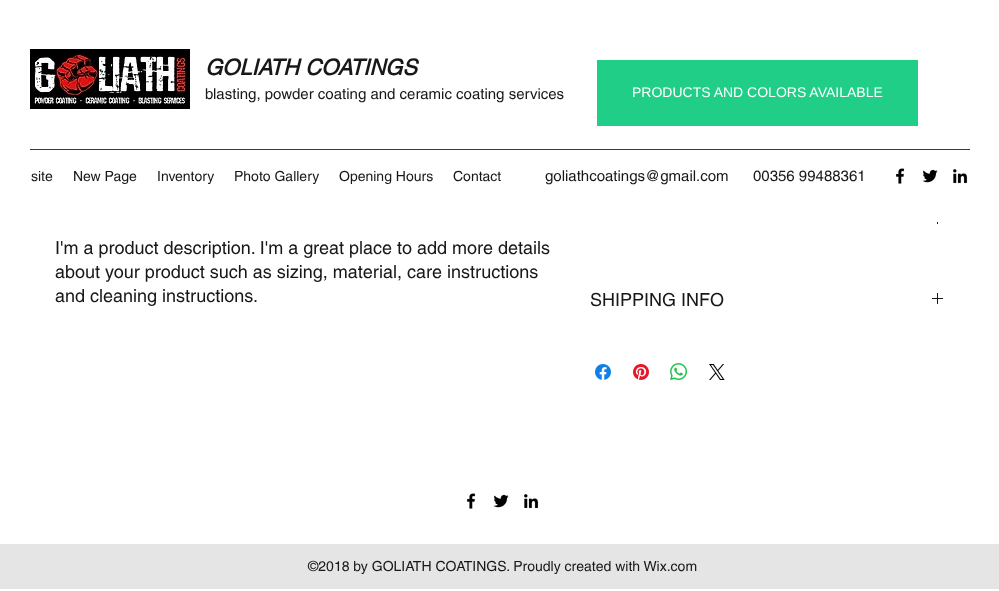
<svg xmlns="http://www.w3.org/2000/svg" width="999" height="591">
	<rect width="100%" height="100%" fill="#FFFFFF" />
	<image x="30" y="49" width="160" height="60" href="assets/img1.png" />
	<text x="205" y="75" font-family="helvetica" font-size="22" font-weight="700" font-style="italic" fill="#181818">GOLIATH COATINGS</text>
	<text x="205" y="99" font-family="helvetica" font-size="15" fill="#181818">blasting, powder coating and ceramic coating services</text>
	<rect x="597" y="60" width="321" height="66" fill="#20CE88" />
	<text x="632" y="97" font-family="Liberation Sans" font-size="14" fill="#FFFFFF">PRODUCTS AND COLORS AVAILABLE</text>
	<rect x="30" y="149" width="940" height="1" fill="#3B3B3B" />
	<g font-family="helvetica" font-size="14" fill="#181818">
		<text x="31" y="181">site</text>
		<text x="73" y="181">New Page</text>
		<text x="157" y="181">Inventory</text>
		<text x="234" y="181">Photo Gallery</text>
		<text x="339" y="181">Opening Hours</text>
		<text x="453" y="181">Contact</text>
	</g>
	<g font-family="helvetica" font-size="15" fill="#181818">
		<text x="545" y="181">goliathcoatings@gmail.com</text>
		<text x="753" y="181">00356 99488361</text>
	</g>
	<image x="896" y="168" width="9" height="16" href="assets/img2.png" />
	<image x="922" y="169" width="16" height="14" href="assets/img3.png" />
	<image x="953" y="169" width="15" height="15" href="assets/img4.png" />
	<g font-family="helvetica" font-size="18" fill="#181818">
		<text x="55" y="254">I'm a product description. I'm a great place to add more details</text>
		<text x="55" y="278">about your product such as sizing, material, care instructions</text>
		<text x="55" y="302">and cleaning instructions.</text>
	</g>
	<image x="937" y="222" width="1" height="2" href="assets/img5.png" />
	<text x="590" y="306" font-family="helvetica" font-size="18" fill="#181818">SHIPPING INFO</text>
	<image x="932" y="293" width="11" height="11" href="assets/img6.png" />
	<image x="595" y="364" width="16" height="16" href="assets/img7.png" />
	<image x="633" y="364" width="16" height="16" href="assets/img8.png" />
	<image x="670" y="363" width="17" height="17" href="assets/img9.png" />
	<image x="709" y="364" width="16" height="16" href="assets/img10.png" />
	<image x="467" y="493" width="9" height="16" href="assets/img2.png" />
	<image x="493" y="494" width="16" height="14" href="assets/img3.png" />
	<image x="524" y="494" width="15" height="15" href="assets/img4.png" />
	<rect x="0" y="544" width="999" height="45" fill="#E5E5E5" />
	<text x="308" y="571" font-family="helvetica" font-size="14" fill="#181818">©2018 by GOLIATH COATINGS. Proudly created with Wix.com</text>
</svg>
